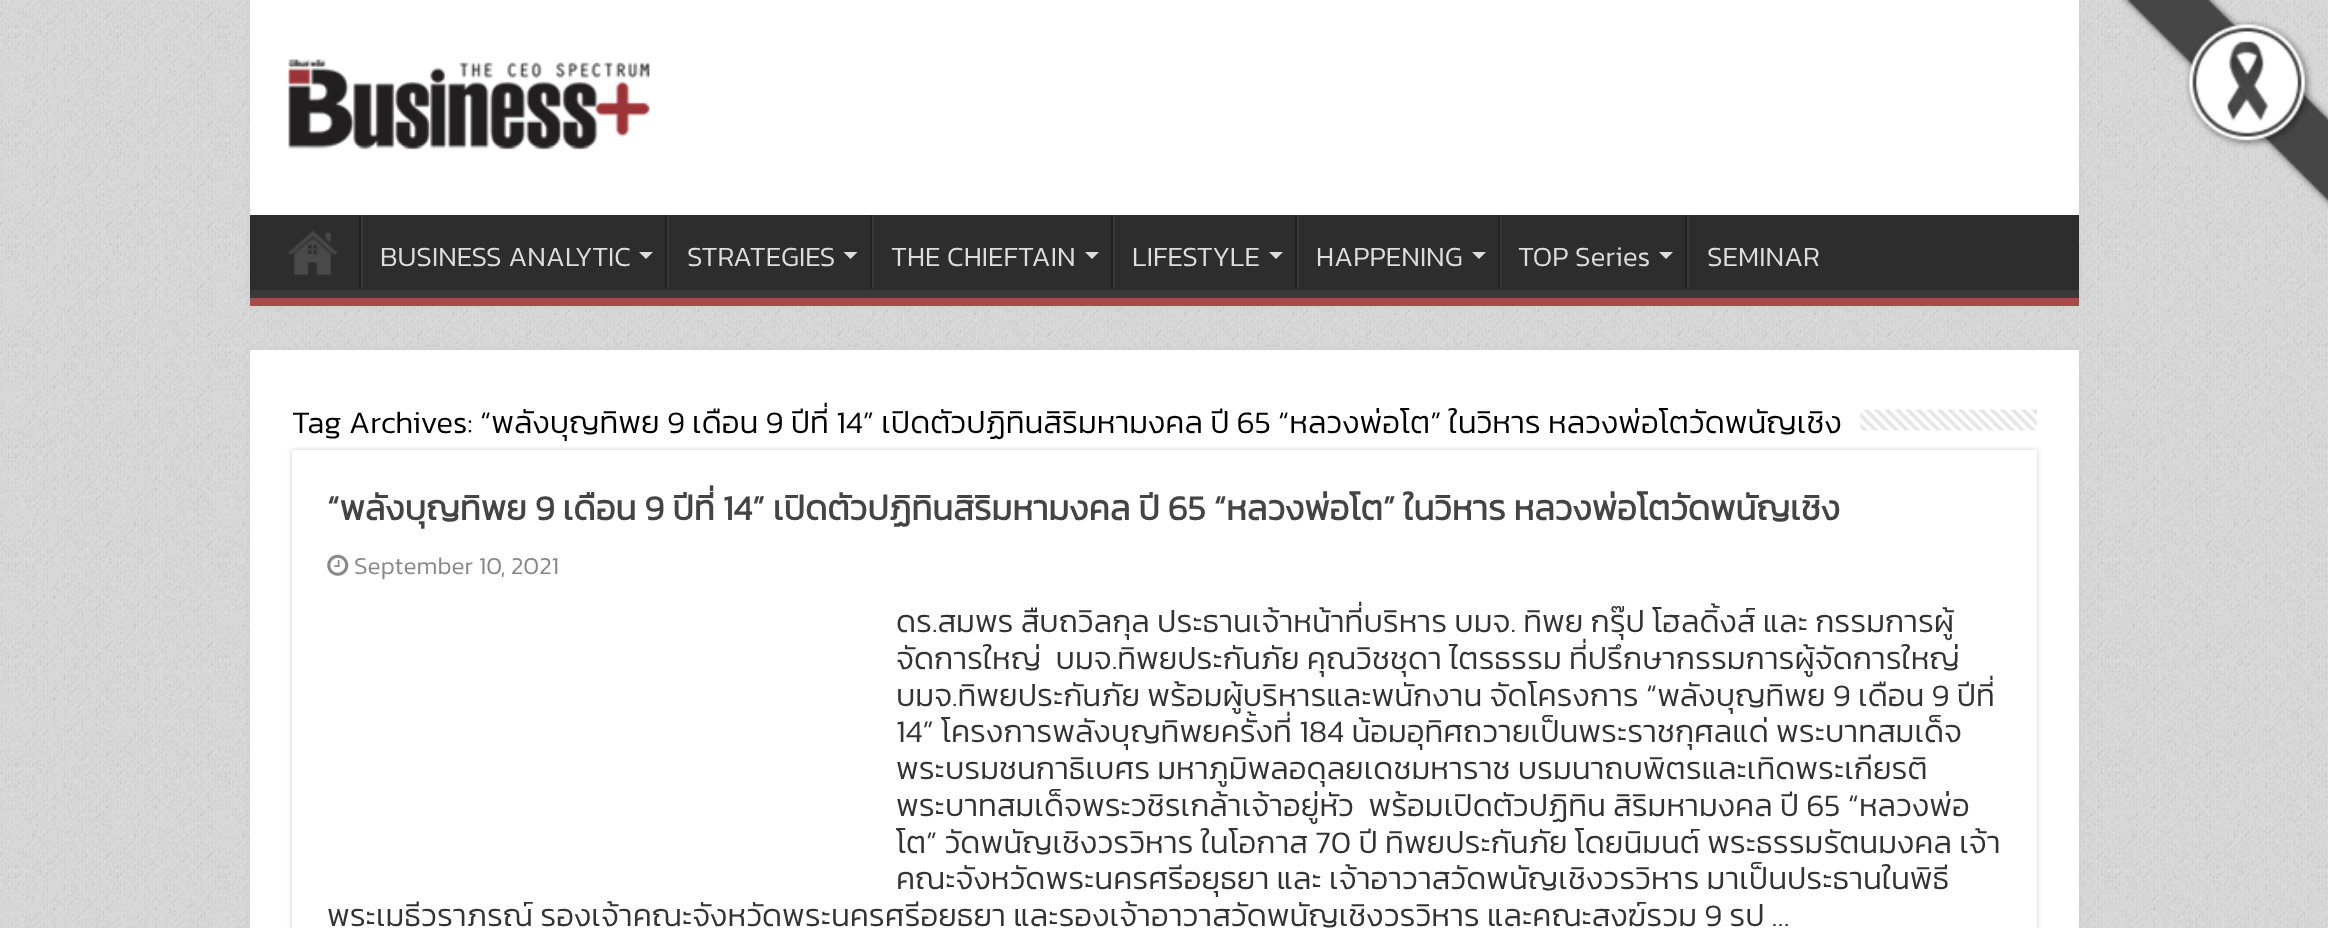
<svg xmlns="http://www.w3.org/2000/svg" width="2328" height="928">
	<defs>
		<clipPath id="clip1"><rect x="250" y="215" width="1829" height="83" /></clipPath>
	</defs>
	<rect width="100%" height="100%" fill="#D9D9D9" />
	<image x="0" y="0" width="2328" height="928" href="assets/img1.png" />
	<image x="2120" y="0" width="208" height="209" href="assets/img2.png" />
	<rect x="250" y="-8" width="1829" height="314" fill="#CACACA" filter="blur(2.5px)" />
	<rect x="250" y="0" width="1829" height="215" fill="#FFFFFF" />
	<image x="288" y="59" width="362" height="91" href="assets/img3.png" />
	<rect x="250" y="215" width="1829" height="75" fill="#2D2D2D" />
	<g clip-path="url(#clip1)">
		<path d="M77 42H2252V471H77ZM248 205H2077C2078 205 2079 206 2079 206V289C2079 290 2078 290 2077 290H248C248 290 247 290 247 289V206C247 206 248 205 248 205Z" fill="#393939" fill-rule="evenodd" />
	</g>
	<rect x="250" y="298" width="1829" height="8" fill="#A64A4A" />
	<image x="287" y="231" width="51" height="44" href="assets/img4.png" />
	<rect x="359" y="215" width="2" height="74" fill="#222222" />
	<rect x="361" y="215" width="2" height="74" fill="#383838" />
	<text x="380" y="266" font-family="Kanit" font-size="28" font-weight="300" fill="#DDDDDD">BUSINESS ANALYTIC</text>
	<path d="M639 252H653L646 259Z" fill="#DDDDDD" />
	<rect x="665" y="215" width="2" height="74" fill="#222222" />
	<rect x="667" y="215" width="2" height="74" fill="#383838" />
	<text x="687" y="266" font-family="Kanit" font-size="28" font-weight="300" fill="#DDDDDD">STRATEGIES</text>
	<path d="M843.5 252H857.5L850.5 259Z" fill="#DDDDDD" />
	<rect x="870" y="215" width="2" height="74" fill="#222222" />
	<rect x="872" y="215" width="2" height="74" fill="#383838" />
	<text x="891" y="266" font-family="Kanit" font-size="28" font-weight="300" fill="#DDDDDD">THE CHIEFTAIN</text>
	<path d="M1085 252H1099L1092 259Z" fill="#DDDDDD" />
	<rect x="1111" y="215" width="2" height="74" fill="#222222" />
	<rect x="1113" y="215" width="2" height="74" fill="#383838" />
	<text x="1132" y="266" font-family="Kanit" font-size="28" font-weight="300" fill="#DDDDDD">LIFESTYLE</text>
	<path d="M1269 252H1283L1276 259Z" fill="#DDDDDD" />
	<rect x="1295" y="215" width="2" height="74" fill="#222222" />
	<rect x="1297" y="215" width="2" height="74" fill="#383838" />
	<text x="1316" y="266" font-family="Kanit" font-size="28" font-weight="300" fill="#DDDDDD">HAPPENING</text>
	<path d="M1472 252H1486L1479 259Z" fill="#DDDDDD" />
	<rect x="1498" y="215" width="2" height="74" fill="#222222" />
	<rect x="1500" y="215" width="2" height="74" fill="#383838" />
	<text x="1518" y="266" font-family="Kanit" font-size="28" font-weight="300" fill="#DDDDDD">TOP Series</text>
	<path d="M1659 252H1673L1666 259Z" fill="#DDDDDD" />
	<rect x="1685" y="215" width="2" height="74" fill="#222222" />
	<rect x="1687" y="215" width="2" height="74" fill="#383838" />
	<text x="1707" y="266" font-family="Kanit" font-size="28" font-weight="300" fill="#DDDDDD">SEMINAR</text>
	<rect x="250" y="350" width="1829" height="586" fill="#CACACA" filter="blur(2.5px)" />
	<rect x="250" y="350" width="1829" height="578" fill="#FFFFFF" />
	<text x="292" y="433" font-family="Kanit" font-size="31.5" font-weight="300" fill="#000000">Tag Archives: “พลังบุญทิพย 9 เดือน 9 ปีที่ 14” เปิดตัวปฏิทินสิริมหามงคล ปี 65 “หลวงพ่อโต” ในวิหาร หลวงพ่อโตวัดพนัญเชิง</text>
	<image x="1860" y="409" width="177" height="22" href="assets/img5.png" />
	<rect x="292" y="450" width="1745" height="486" fill="#CACACA" filter="blur(2.5px)" />
	<rect x="292" y="450" width="1745" height="478" fill="#FFFFFF" />
	<text x="327" y="520" font-family="Kanit" font-size="35" font-weight="700" fill="#444444">“พลังบุญทิพย 9 เดือน 9 ปีที่ 14” เปิดตัวปฏิทินสิริมหามงคล ปี 65 “หลวงพ่อโต” ในวิหาร หลวงพ่อโตวัดพนัญเชิง</text>
	<image x="327" y="554" width="22" height="22" href="assets/img6.png" />
	<text x="354" y="574" font-family="Kanit" font-size="24.5" font-weight="300" fill="#888888">September 10, 2021</text>
	<g font-family="Kanit" font-size="31.5" font-weight="300" fill="#333333">
		<text x="896" y="632">ดร.สมพร สืบถวิลกุล ประธานเจ้าหน้าที่บริหาร บมจ. ทิพย กรุ๊ป โฮลดิ้งส์ และ กรรมการผู้</text>
		<text x="896" y="669" xml:space="preserve">จัดการใหญ่  บมจ.ทิพยประกันภัย คุณวิชชุดา ไตรธรรม ที่ปรึกษากรรมการผู้จัดการใหญ่</text>
		<text x="896" y="706">บมจ.ทิพยประกันภัย พร้อมผู้บริหารและพนักงาน จัดโครงการ “พลังบุญทิพย 9 เดือน 9 ปีที่</text>
		<text x="896" y="742">14” โครงการพลังบุญทิพยครั้งที่ 184 น้อมอุทิศถวายเป็นพระราชกุศลแด่ พระบาทสมเด็จ</text>
		<text x="896" y="779">พระบรมชนกาธิเบศร มหาภูมิพลอดุลยเดชมหาราช บรมนาถบพิตรและเทิดพระเกียรติ</text>
		<text x="896" y="816" xml:space="preserve">พระบาทสมเด็จพระวชิรเกล้าเจ้าอยู่หัว  พร้อมเปิดตัวปฏิทิน สิริมหามงคล ปี 65 “หลวงพ่อ</text>
		<text x="896" y="853">โต” วัดพนัญเชิงวรวิหาร ในโอกาส 70 ปี ทิพยประกันภัย โดยนิมนต์ พระธรรมรัตนมงคล เจ้า</text>
		<text x="896" y="889">คณะจังหวัดพระนครศรีอยุธยา และ เจ้าอาวาสวัดพนัญเชิงวรวิหาร มาเป็นประธานในพิธี</text>
		<text x="327" y="926">พระเมธีวราภรณ์ รองเจ้าคณะจังหวัดพระนครศรีอยุธยา และรองเจ้าอาวาสวัดพนัญเชิงวรวิหาร และคณะสงฆ์รวม 9 รูป …</text>
	</g>
</svg>
